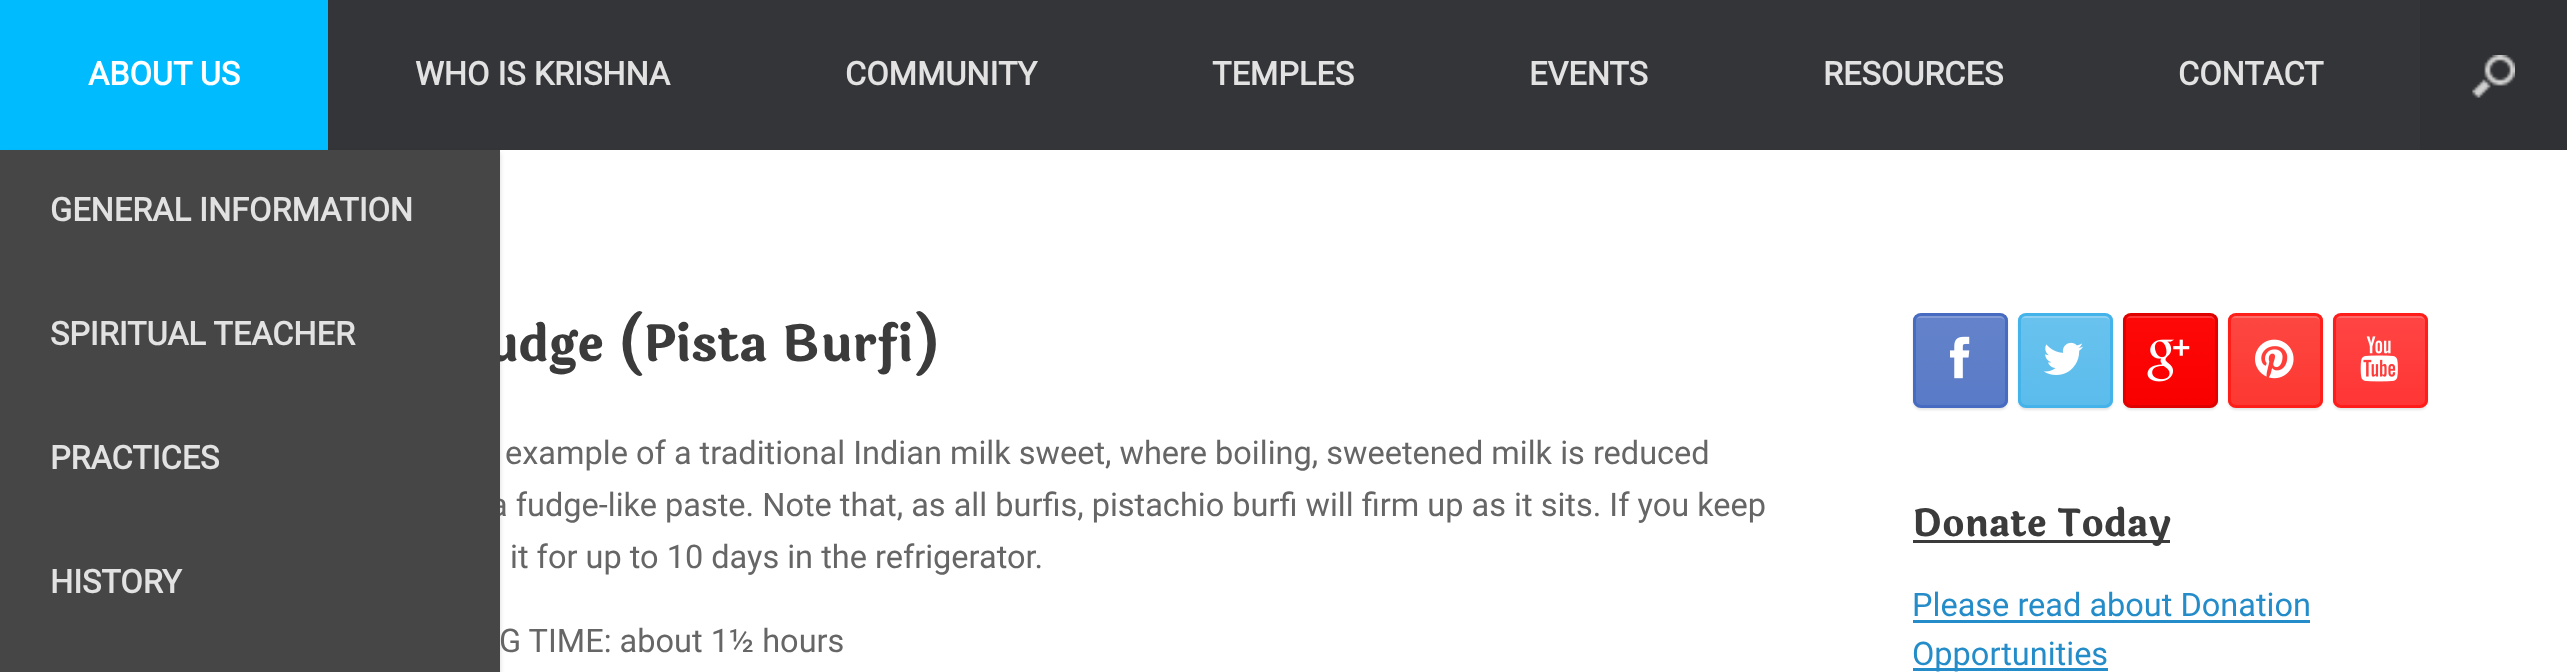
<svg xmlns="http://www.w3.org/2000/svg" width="2567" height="672">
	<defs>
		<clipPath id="clip1"><rect x="1913" y="313" width="95" height="95" rx="8" /></clipPath>
		<linearGradient id="g1" gradientUnits="userSpaceOnUse" x1="1915" y1="405" x2="1915" y2="315"><stop offset="0" stop-color="#597AC7" /><stop offset="1" stop-color="#6483CB" /></linearGradient>
		<clipPath id="clip2"><rect x="2018" y="313" width="95" height="95" rx="8" /></clipPath>
		<linearGradient id="g2" gradientUnits="userSpaceOnUse" x1="2020" y1="405" x2="2020" y2="315"><stop offset="0" stop-color="#5BBCEC" /><stop offset="1" stop-color="#69C2EE" /></linearGradient>
		<clipPath id="clip3"><rect x="2123" y="313" width="95" height="95" rx="8" /></clipPath>
		<linearGradient id="g3" gradientUnits="userSpaceOnUse" x1="2125" y1="405" x2="2125" y2="315"><stop offset="0" stop-color="#F80000" /><stop offset="1" stop-color="#FF0808" /></linearGradient>
		<clipPath id="clip4"><rect x="2228" y="313" width="95" height="95" rx="8" /></clipPath>
		<linearGradient id="g4" gradientUnits="userSpaceOnUse" x1="2230" y1="405" x2="2230" y2="315"><stop offset="0" stop-color="#FD3832" /><stop offset="1" stop-color="#FD4741" /></linearGradient>
		<clipPath id="clip5"><rect x="2333" y="313" width="95" height="95" rx="8" /></clipPath>
		<linearGradient id="g5" gradientUnits="userSpaceOnUse" x1="2335" y1="405" x2="2335" y2="315"><stop offset="0" stop-color="#FF3635" /><stop offset="1" stop-color="#FF4544" /></linearGradient>
	</defs>
	<rect width="100%" height="100%" fill="#FFFFFF" />
	<rect x="328" y="0" width="2092" height="150" fill="#343538" />
	<rect x="0" y="0" width="328" height="150" fill="#00BCFF" />
	<text x="88" y="85" font-family="Roboto" font-size="32.5" font-weight="700" fill="#FFFFFF">ABOUT US</text>
	<rect x="0" y="153" width="500" height="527" fill="#000000" fill-opacity="0.15" filter="blur(2.5px)" />
	<text x="487" y="361" font-family="Laila" font-size="50" font-weight="700" fill="#3B3B3B">udge (Pista Burfi)</text>
	<text x="490" y="516" font-family="Roboto" font-size="32.5" fill="#666666">a fudge-like paste. Note that, as all burfis, pistachio burfi will firm up as it sits. If you keep</text>
	<rect x="0" y="150" width="500" height="522" fill="#464646" />
	<g font-family="Roboto" font-size="32.5" font-weight="700" fill="#E2E2E2">
		<text x="50" y="221">GENERAL INFORMATION</text>
		<text x="50" y="345">SPIRITUAL TEACHER</text>
		<text x="50" y="469">PRACTICES</text>
		<text x="50" y="593">HISTORY</text>
		<text x="415" y="85">WHO IS KRISHNA</text>
		<text x="845" y="85">COMMUNITY</text>
		<text x="1212" y="85">TEMPLES</text>
		<text x="1529" y="85">EVENTS</text>
		<text x="1823" y="85">RESOURCES</text>
		<text x="2178" y="85">CONTACT</text>
	</g>
	<rect x="2420" y="0" width="147" height="150" fill="#303134" />
	<image x="2472" y="55" width="43" height="43" href="assets/img1.png" />
	<g font-family="Roboto" font-size="32.5" fill="#666666">
		<text x="505" y="464">example of a traditional Indian milk sweet, where boiling, sweetened milk is reduced</text>
		<text x="510" y="568">it for up to 10 days in the refrigerator.</text>
		<text x="499" y="652">G TIME: about 1½ hours</text>
	</g>
	<rect x="1913" y="315" width="95" height="95" rx="8" fill="#000000" fill-opacity="0.1" filter="blur(1px)" />
	<g clip-path="url(#clip1)">
		<rect x="1913" y="315" width="95" height="90" fill="url(#g1)" />
	</g>
	<path d="M1920 318H2000C2003 318 2005 320 2005 322C2005 312 1995 315 1987 315H1933C1925 315 1915 312 1915 322C1915 320 1917 318 1920 318Z" fill="#839CD5" />
	<rect x="1914.5" y="314.5" width="92" height="92" rx="6.5" fill="none" stroke="#466BC1" stroke-width="3" />
	<image x="1950" y="336" width="20" height="43" href="assets/img2.png" />
	<rect x="2018" y="315" width="95" height="95" rx="8" fill="#000000" fill-opacity="0.1" filter="blur(1px)" />
	<g clip-path="url(#clip2)">
		<rect x="2018" y="315" width="95" height="90" fill="url(#g2)" />
	</g>
	<path d="M2025 318H2105C2108 318 2110 320 2110 322C2110 312 2100 315 2092 315H2038C2030 315 2020 312 2020 322C2020 320 2022 318 2025 318Z" fill="#8ED1F2" />
	<rect x="2019.5" y="314.5" width="92" height="92" rx="6.5" fill="none" stroke="#44B3E9" stroke-width="3" />
	<image x="2043" y="342" width="40" height="33" href="assets/img3.png" />
	<rect x="2123" y="315" width="95" height="95" rx="8" fill="#000000" fill-opacity="0.1" filter="blur(1px)" />
	<g clip-path="url(#clip3)">
		<rect x="2123" y="315" width="95" height="90" fill="url(#g3)" />
	</g>
	<path d="M2130 318H2210C2213 318 2215 320 2215 322C2215 312 2205 315 2197 315H2143C2135 315 2125 312 2125 322C2125 320 2127 318 2130 318Z" fill="#FF3939" />
	<rect x="2124.5" y="314.5" width="92" height="92" rx="6.5" fill="none" stroke="#DF0000" stroke-width="3" />
	<image x="2147" y="339" width="43" height="43" href="assets/img4.png" />
	<rect x="2228" y="315" width="95" height="95" rx="8" fill="#000000" fill-opacity="0.1" filter="blur(1px)" />
	<g clip-path="url(#clip4)">
		<rect x="2228" y="315" width="95" height="90" fill="url(#g4)" />
	</g>
	<path d="M2235 318H2315C2318 318 2320 320 2320 322C2320 312 2310 315 2302 315H2248C2240 315 2230 312 2230 322C2230 320 2232 318 2235 318Z" fill="#FD6C67" />
	<rect x="2229.5" y="314.5" width="92" height="92" rx="6.5" fill="none" stroke="#FD1F19" stroke-width="3" />
	<image x="2255" y="339" width="39" height="40" href="assets/img5.png" />
	<rect x="2333" y="315" width="95" height="95" rx="8" fill="#000000" fill-opacity="0.1" filter="blur(1px)" />
	<g clip-path="url(#clip5)">
		<rect x="2333" y="315" width="95" height="90" fill="url(#g5)" />
	</g>
	<path d="M2340 318H2420C2423 318 2425 320 2425 322C2425 312 2415 315 2407 315H2353C2345 315 2335 312 2335 322C2335 320 2337 318 2340 318Z" fill="#FF6A69" />
	<rect x="2334.5" y="314.5" width="92" height="92" rx="6.5" fill="none" stroke="#FF1D1B" stroke-width="3" />
	<image x="2360" y="336" width="38" height="46" href="assets/img6.png" />
	<rect x="1913" y="540" width="257" height="3" fill="#3B3B3B" />
	<text x="1912" y="536" font-family="Laila" font-size="37.5" font-weight="700" fill="#3B3B3B">Donate Today</text>
	<text x="1912" y="616" font-family="Roboto" font-size="32.5" fill="#248CC8">Please read about Donation</text>
	<rect x="1913" y="620" width="397" height="3" fill="#248CC8" />
	<rect x="1913" y="668" width="195" height="3" fill="#248CC8" />
	<text x="1912" y="665" font-family="Roboto" font-size="32.5" fill="#248CC8">Opportunities</text>
</svg>
